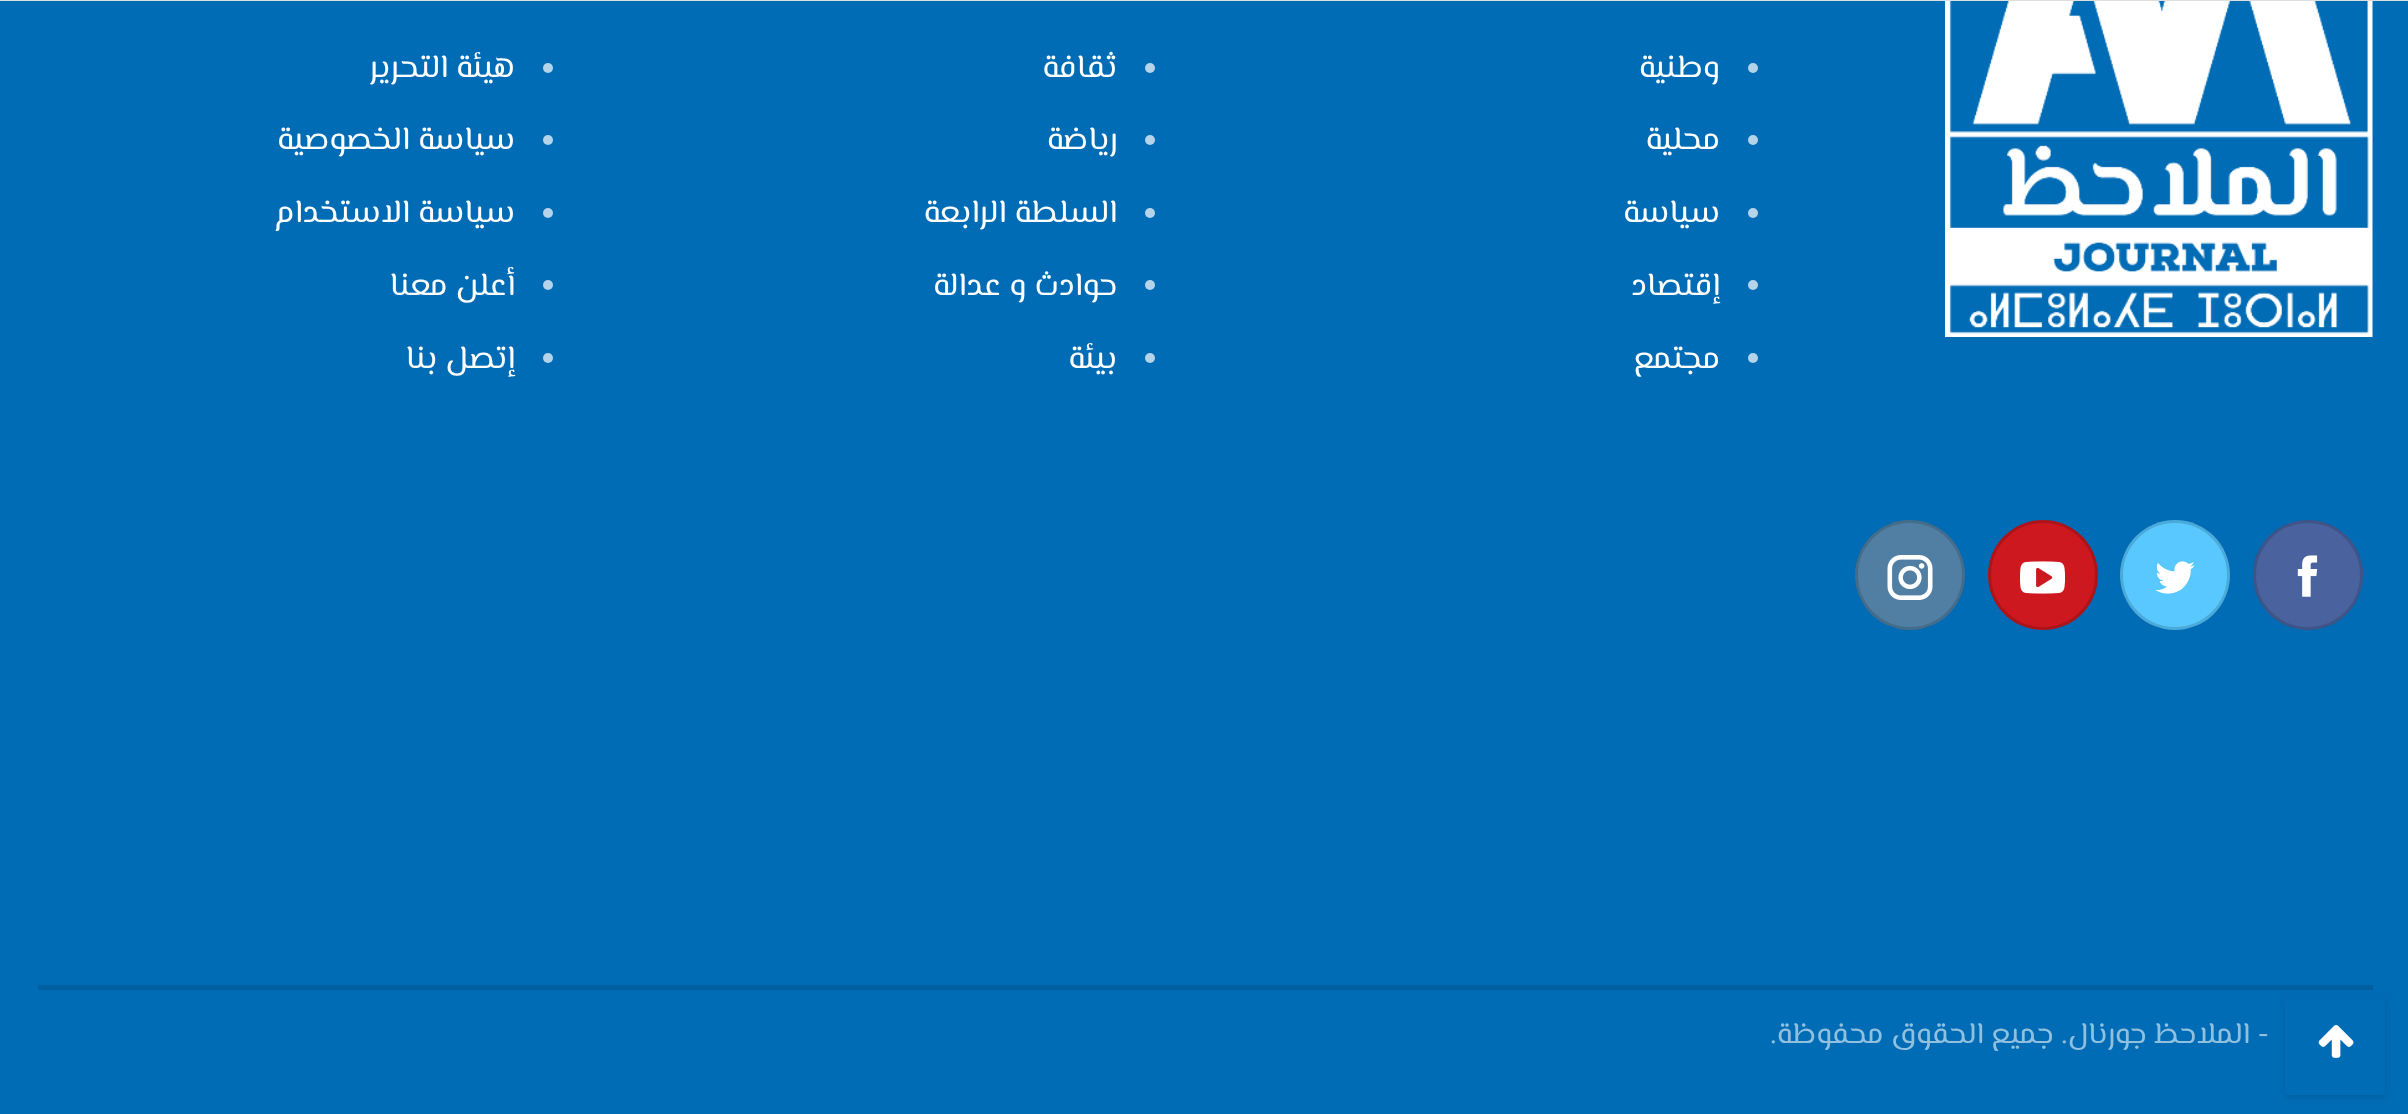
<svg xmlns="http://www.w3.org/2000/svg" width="2408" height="1114">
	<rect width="100%" height="100%" fill="#006CB5" />
	<rect x="38" y="985" width="2335" height="5" fill="#005F9F" />
	<rect x="2285" y="998" width="100" height="100" fill="#000000" fill-opacity="0.09" filter="blur(2.5px)" />
	<rect x="2285" y="996" width="100" height="99" fill="#006CB5" />
	<image x="2318" y="1025" width="36" height="33" href="assets/img1.png" />
	<rect x="0" y="0" width="2408" height="1" fill="#DEDEDE" />
	<image x="1945" y="1" width="428" height="336" href="assets/img2.png" />
	<circle cx="2308" cy="575" r="55" fill="#4A639F" />
	<circle cx="2308" cy="575" r="53.5" fill="none" stroke="#000000" stroke-opacity="0.15" stroke-width="3" />
	<image x="2297" y="555" width="21" height="42" href="assets/img3.png" />
	<circle cx="2175" cy="575" r="55" fill="#59C8FF" />
	<circle cx="2175" cy="575" r="53.5" fill="none" stroke="#000000" stroke-opacity="0.15" stroke-width="3" />
	<image x="2155" y="561" width="40" height="33" href="assets/img4.png" />
	<circle cx="2043" cy="575" r="55" fill="#CC181E" />
	<circle cx="2043" cy="575" r="53.5" fill="none" stroke="#000000" stroke-opacity="0.15" stroke-width="3" />
	<image x="2020" y="561" width="45" height="33" href="assets/img5.png" />
	<circle cx="1910" cy="575" r="55" fill="#517FA4" />
	<circle cx="1910" cy="575" r="53.5" fill="none" stroke="#000000" stroke-opacity="0.15" stroke-width="3" />
	<image x="1887" y="555" width="46" height="45" href="assets/img6.png" />
	<circle cx="1753" cy="68" r="5" fill="#B5D4EA" />
	<text x="1720" y="77" font-family="El Messiri" font-size="32.5" direction="rtl" fill="#FFFFFF">وطنية</text>
	<circle cx="1753" cy="140" r="5" fill="#B5D4EA" />
	<text x="1720" y="149" font-family="El Messiri" font-size="32.5" direction="rtl" fill="#FFFFFF">محلية</text>
	<circle cx="1753" cy="213" r="5" fill="#B5D4EA" />
	<text x="1720" y="222" font-family="El Messiri" font-size="32.5" direction="rtl" fill="#FFFFFF">سياسة</text>
	<circle cx="1753" cy="285" r="5" fill="#B5D4EA" />
	<text x="1720" y="295" font-family="El Messiri" font-size="32.5" direction="rtl" fill="#FFFFFF">إقتصاد</text>
	<circle cx="1753" cy="358" r="5" fill="#B5D4EA" />
	<text x="1720" y="368" font-family="El Messiri" font-size="32.5" direction="rtl" fill="#FFFFFF">مجتمع</text>
	<circle cx="1150" cy="68" r="5" fill="#B5D4EA" />
	<text x="1117" y="77" font-family="El Messiri" font-size="32.5" direction="rtl" fill="#FFFFFF">ثقافة</text>
	<circle cx="1150" cy="140" r="5" fill="#B5D4EA" />
	<text x="1117" y="149" font-family="El Messiri" font-size="32.5" direction="rtl" fill="#FFFFFF">رياضة</text>
	<circle cx="1150" cy="213" r="5" fill="#B5D4EA" />
	<text x="1117" y="222" font-family="El Messiri" font-size="32.5" direction="rtl" fill="#FFFFFF">السلطة الرابعة</text>
	<circle cx="1150" cy="285" r="5" fill="#B5D4EA" />
	<text x="1117" y="295" font-family="El Messiri" font-size="32.5" direction="rtl" fill="#FFFFFF">حوادث و عدالة</text>
	<circle cx="1150" cy="358" r="5" fill="#B5D4EA" />
	<text x="1117" y="368" font-family="El Messiri" font-size="32.5" direction="rtl" fill="#FFFFFF">بيئة</text>
	<circle cx="548" cy="68" r="5" fill="#B5D4EA" />
	<text x="515" y="77" font-family="El Messiri" font-size="32.5" direction="rtl" fill="#FFFFFF">هيئة التحرير</text>
	<circle cx="548" cy="140" r="5" fill="#B5D4EA" />
	<text x="515" y="149" font-family="El Messiri" font-size="32.5" direction="rtl" fill="#FFFFFF">سياسة الخصوصية</text>
	<circle cx="548" cy="213" r="5" fill="#B5D4EA" />
	<text x="515" y="222" font-family="El Messiri" font-size="32.5" direction="rtl" fill="#FFFFFF">سياسة الاستخدام</text>
	<circle cx="548" cy="285" r="5" fill="#B5D4EA" />
	<text x="515" y="295" font-family="El Messiri" font-size="32.5" direction="rtl" fill="#FFFFFF">أعلن معنا</text>
	<circle cx="548" cy="358" r="5" fill="#B5D4EA" />
	<text x="515" y="368" font-family="El Messiri" font-size="32.5" direction="rtl" fill="#FFFFFF">إتصل بنا</text>
	<text x="2269" y="1043" font-family="El Messiri" font-size="30" direction="rtl" fill="#91C0DF">- الملاحظ جورنال. جميع الحقوق محفوظة.</text>
</svg>
